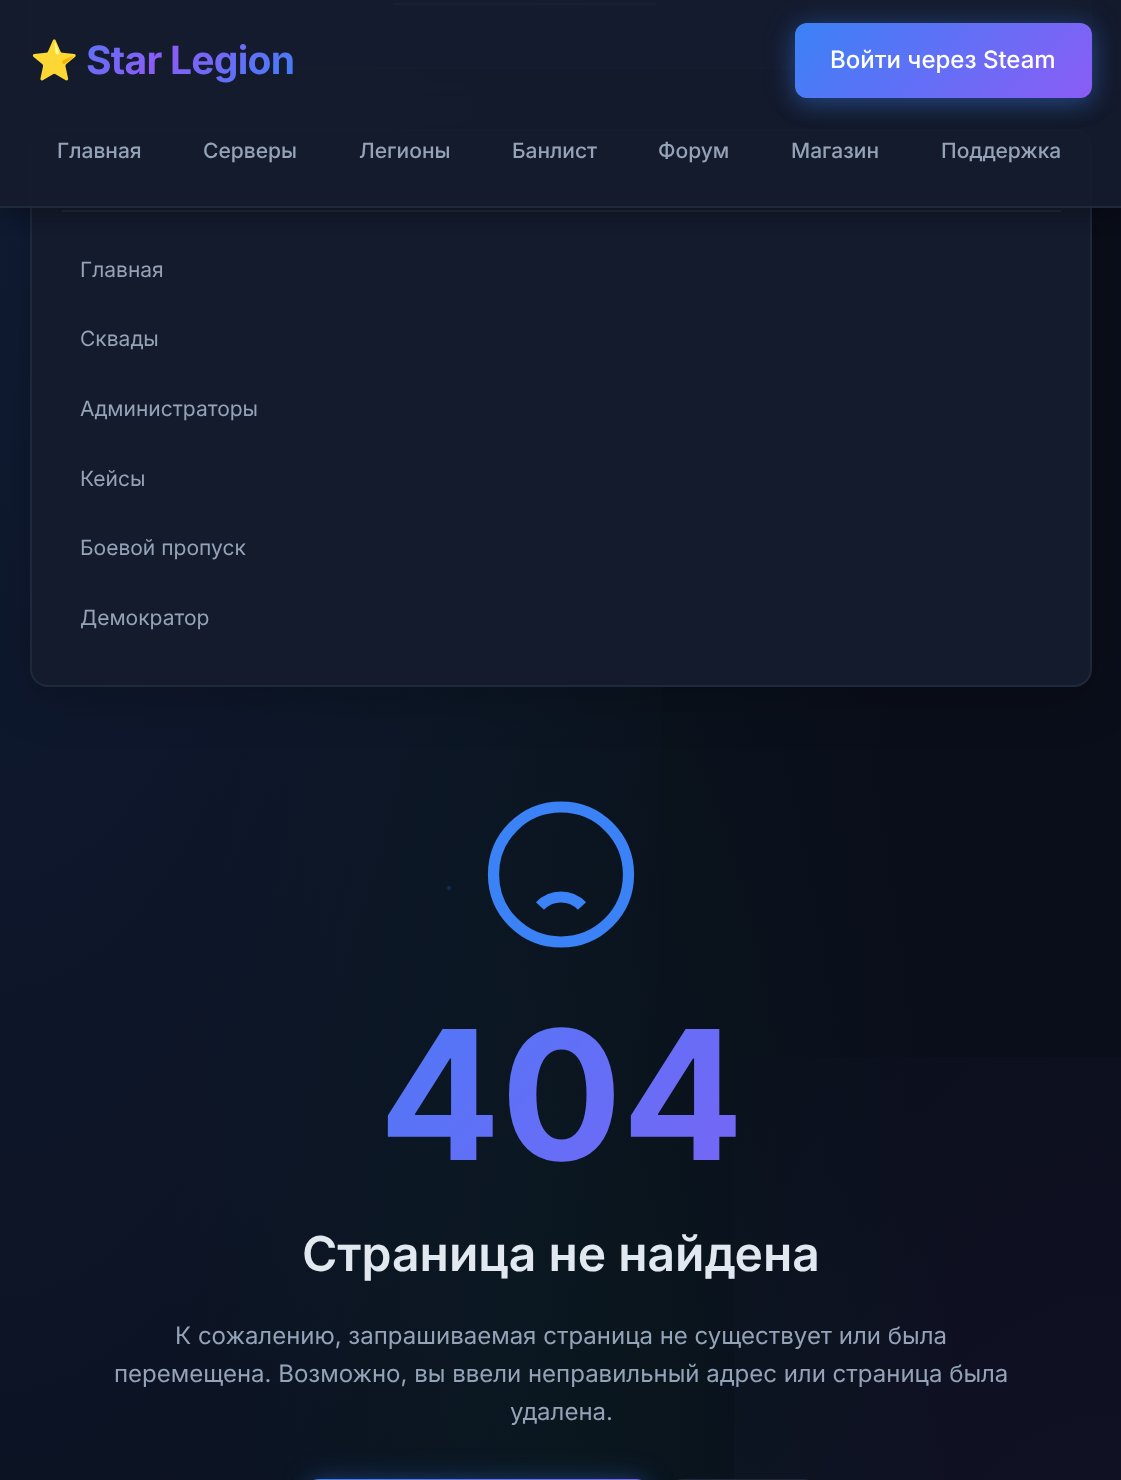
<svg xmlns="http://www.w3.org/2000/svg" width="1121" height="1480">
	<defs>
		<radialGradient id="g1" gradientUnits="userSpaceOnUse" cx="0" cy="0" r="1" gradientTransform="matrix(793 0 0 2740 561 1466)"><stop offset="0" stop-color="#0A171F" /><stop offset="0.5" stop-color="#0A0E1A" /></radialGradient>
		<radialGradient id="g2" gradientUnits="userSpaceOnUse" cx="0" cy="0" r="1" gradientTransform="matrix(1587 0 0 5479 1122 3404)"><stop offset="0" stop-color="#8B5CF6" stop-opacity="0.15" /><stop offset="0.5" stop-color="#8B5CF6" stop-opacity="0" /></radialGradient>
		<radialGradient id="g3" gradientUnits="userSpaceOnUse" cx="0" cy="0" r="1" gradientTransform="matrix(1587 0 0 5479 0 -471)"><stop offset="0" stop-color="#3B82F6" stop-opacity="0.15" /><stop offset="0.5" stop-color="#3B82F6" stop-opacity="0" /></radialGradient>
		<radialGradient id="g4" gradientUnits="userSpaceOnUse" cx="561" cy="-82" r="1101"><stop offset="0" stop-color="#3B82F6" stop-opacity="0.1" /><stop offset="0.7" stop-color="#3B82F6" stop-opacity="0" /></radialGradient>
		<clipPath id="clip1"><rect x="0" y="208" width="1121" height="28" /></clipPath>
		<linearGradient id="g5" gradientUnits="userSpaceOnUse" x1="81" y1="-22" x2="244" y2="141"><stop offset="0" stop-color="#3B82F6" /><stop offset="0.5" stop-color="#8B5CF6" /><stop offset="1" stop-color="#3B82F6" /></linearGradient>
		<linearGradient id="g6" gradientUnits="userSpaceOnUse" x1="291" y1="826" x2="831" y2="1366"><stop offset="0" stop-color="#3B82F6" /><stop offset="1" stop-color="#8B5CF6" /></linearGradient>
		<linearGradient id="g7" gradientUnits="userSpaceOnUse" x1="851" y1="-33" x2="1037" y2="153"><stop offset="0" stop-color="#3B82F6" /><stop offset="1" stop-color="#8B5CF6" /></linearGradient>
		<linearGradient id="g8" gradientUnits="userSpaceOnUse" x1="374" y1="1413" x2="581" y2="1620"><stop offset="0" stop-color="#3B82F6" /><stop offset="1" stop-color="#8B5CF6" /></linearGradient>
		<radialGradient id="g9" gradientUnits="userSpaceOnUse" cx="449" cy="888" r="3"><stop offset="0" stop-color="#3B82F6" stop-opacity="0.3" /><stop offset="1" stop-color="#3B82F6" stop-opacity="0" /></radialGradient>
	</defs>
	<rect width="100%" height="100%" fill="#FFFFFF" />
	<rect x="0" y="0" width="1121" height="1480" fill="url(#g1)" />
	<rect x="734" y="1057" width="387" height="423" fill="url(#g2)" />
	<rect x="0" y="0" width="662" height="1480" fill="url(#g3)" />
	<rect x="30" y="141" width="1062" height="558" rx="18" fill="#000000" fill-opacity="0.2" filter="blur(24px)" />
	<rect x="31" y="130" width="1060" height="556" rx="17" fill="#141B2D" stroke="#1E293B" stroke-width="2" />
	<rect x="30" y="-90" width="1062" height="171" rx="18" fill="#000000" fill-opacity="0.2" filter="blur(24px)" />
	<rect x="31" y="-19" width="1060" height="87" rx="17" fill="#141B2D" stroke="#1E293B" stroke-width="2" />
	<rect x="32" y="0" width="1059" height="68" fill="url(#g4)" />
	<rect x="393" y="3" width="263" height="2" fill="#3B82F6" />
	<rect x="62" y="210" width="999" height="2" fill="#1E293B" />
	<g clip-path="url(#clip1)">
		<rect x="0" y="6" width="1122" height="207" fill="#000000" fill-opacity="0.3" filter="blur(15px)" />
	</g>
	<rect x="0" y="0" width="1121" height="206" fill="#141B2D" fill-opacity="0.95" />
	<rect x="0" y="206" width="1121" height="2" fill="#1E293B" />
	<text x="30" y="74" font-family="Noto Color Emoji" font-size="39" font-weight="700" letter-spacing="-0.75" fill="url(#g5)">⭐</text>
	<text x="86" y="74" font-family="Inter" font-size="39" font-weight="700" letter-spacing="-0.75" fill="url(#g5)">Star Legion</text>
	<rect x="795" y="23" width="297" height="75" rx="12" fill="#3B82F6" fill-opacity="0.2" filter="blur(15px)" />
	<rect x="795" y="29" width="297" height="75" rx="12" fill="#3B82F6" fill-opacity="0.3" filter="blur(11px)" />
	<rect x="795" y="23" width="297" height="75" rx="12" fill="url(#g7)" />
	<text x="830" y="68" font-family="Inter" font-size="24" font-weight="500" fill="#FFFFFF">Войти через Steam</text>
	<g font-family="Inter" font-size="21" font-weight="500" fill="#94A3B8">
		<text x="57" y="158">Главная</text>
		<text x="203" y="158">Серверы</text>
		<text x="359" y="158">Легионы</text>
		<text x="512" y="158">Банлист</text>
		<text x="658" y="158">Форум</text>
		<text x="791" y="158">Магазин</text>
		<text x="941" y="158">Поддержка</text>
	</g>
	<g font-family="Inter" font-size="21" fill="#94A3B8">
		<text x="80" y="277">Главная</text>
		<text x="80" y="346">Сквады</text>
		<text x="80" y="416">Администраторы</text>
		<text x="80" y="486">Кейсы</text>
		<text x="80" y="555">Боевой пропуск</text>
		<text x="80" y="625">Демократор</text>
	</g>
	<path d="M540 906C551.5 894 570.5 894 582 906M538.5 859.5H538.5M583.5 859.5H583.5M628.5 874.5C628.5 912 598.5 942 561 942C523.5 942 493.5 912 493.5 874.5C493.5 837 523.5 807 561 807C598.5 807 628.5 837 628.5 874.5Z" fill="none" stroke="#3B82F6" stroke-width="11.2" />
	<text x="379" y="1160" font-family="Inter" font-size="180" font-weight="700" fill="url(#g6)">404</text>
	<text x="302" y="1271" font-family="Inter" font-size="48" font-weight="600" fill="#E2E8F0">Страница не найдена</text>
	<g font-family="Inter" font-size="24" fill="#94A3B8">
		<text x="175" y="1344">К сожалению, запрашиваемая страница не существует или была</text>
		<text x="114" y="1382">перемещена. Возможно, вы ввели неправильный адрес или страница была</text>
		<text x="510" y="1420">удалена.</text>
	</g>
	<rect x="672" y="1480" width="142" height="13" rx="11" fill="none" stroke="#1E293B" stroke-width="2" />
	<rect x="308" y="1479" width="339" height="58" rx="12" fill="#3B82F6" fill-opacity="0.2" filter="blur(15px)" />
	<rect x="308" y="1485" width="339" height="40" rx="12" fill="#3B82F6" fill-opacity="0.3" filter="blur(11px)" />
	<rect x="308" y="1479" width="339" height="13" rx="12" fill="url(#g8)" />
	<rect x="446" y="885" width="6" height="6" fill="url(#g9)" />
</svg>
